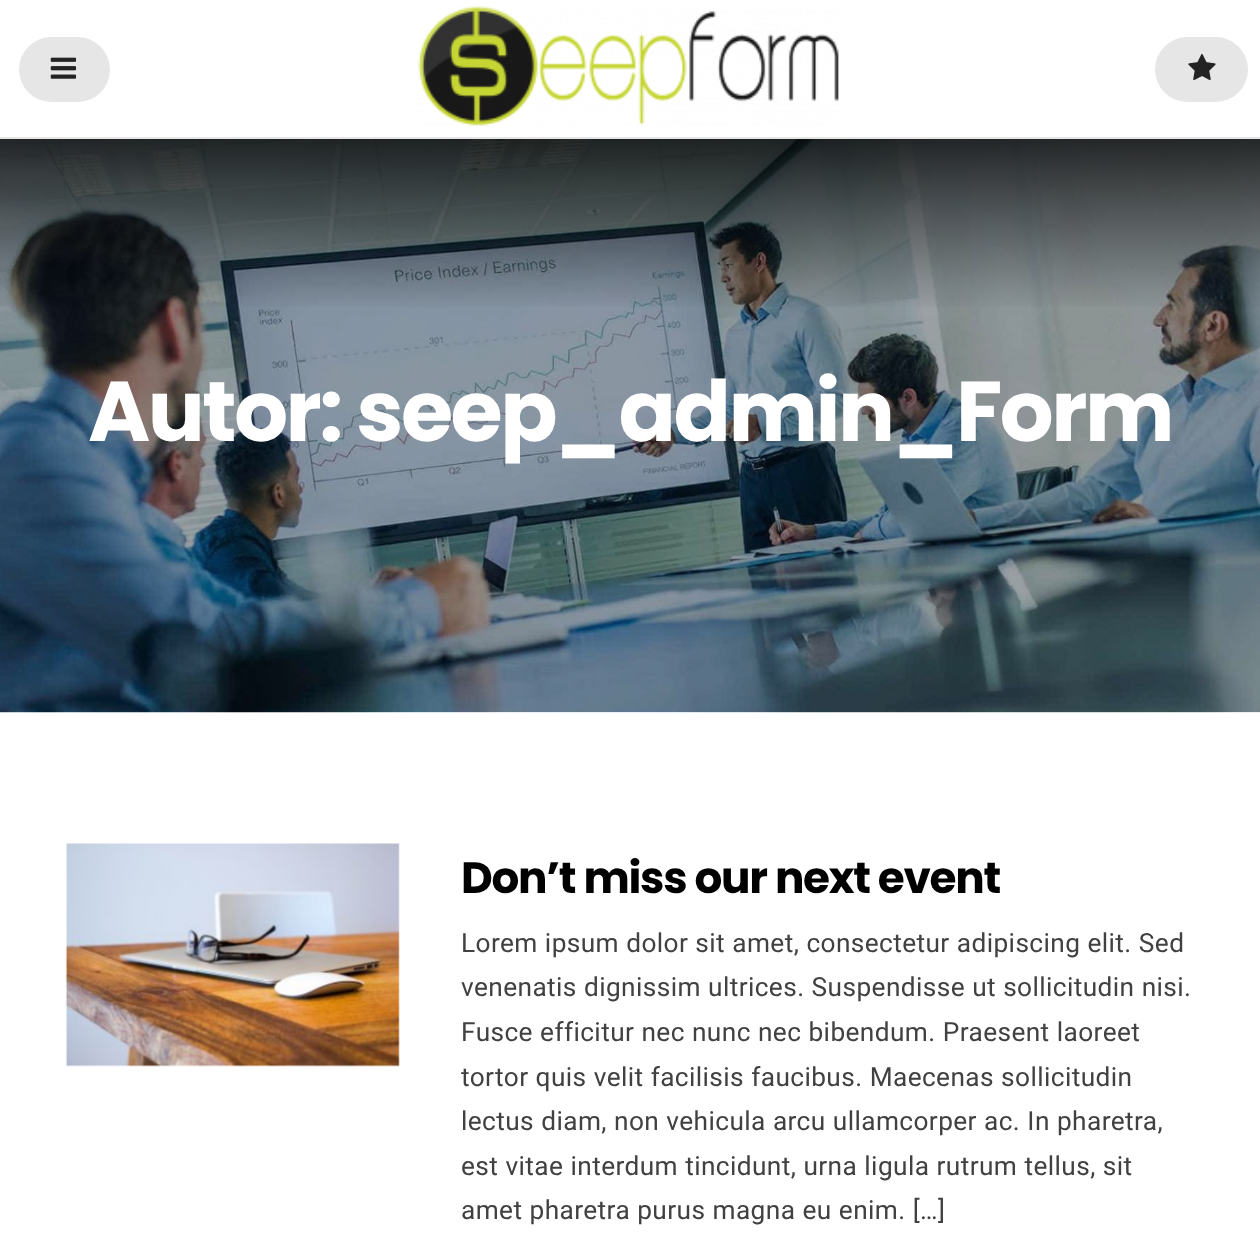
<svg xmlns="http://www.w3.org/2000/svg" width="1260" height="1239">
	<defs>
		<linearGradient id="g1" gradientUnits="userSpaceOnUse" x1="630" y1="138" x2="630" y2="312"><stop offset="0" stop-color="#000000" stop-opacity="0.75" /><stop offset="1" stop-color="#000000" stop-opacity="0" /></linearGradient>
	</defs>
	<rect width="100%" height="100%" fill="#FFFFFF" />
	<rect x="0" y="137" width="1260" height="2" fill="#E5E5E5" />
	<image x="417" y="6" width="422" height="120" href="assets/img1.png" />
	<rect x="19" y="37" width="91" height="65" rx="32.5" fill="#E6E6E6" />
	<image x="50" y="57" width="27" height="22" href="assets/img2.png" />
	<rect x="1155" y="37" width="93" height="65" rx="32.5" fill="#E6E6E6" />
	<image x="1188" y="54" width="28" height="27" href="assets/img3.png" />
	<image x="0" y="139" width="1260" height="574" href="assets/img4.png" />
	<rect x="0" y="139" width="1260" height="168" fill="url(#g1)" />
	<text x="88" y="441" font-family="Poppins" font-size="84.6" font-weight="700" letter-spacing="-2.5" fill="#FFFFFF">Autor: seep_admin_Form</text>
	<image x="65" y="843" width="335" height="224" href="assets/img5.png" />
	<text x="461" y="893" word-spacing="0.25" font-family="Poppins" font-size="43.75" font-weight="700" letter-spacing="-1.3" fill="#000000">Don’t miss our next event</text>
	<g font-family="Roboto" font-size="26.25" letter-spacing="0.4" fill="#414141">
		<text x="461" y="952" word-spacing="0.25">Lorem ipsum dolor sit amet, consectetur adipiscing elit. Sed</text>
		<text x="461" y="996" word-spacing="0.25">venenatis dignissim ultrices. Suspendisse ut sollicitudin nisi.</text>
		<text x="461" y="1041" word-spacing="0.25">Fusce efficitur nec nunc nec bibendum. Praesent laoreet</text>
		<text x="461" y="1086" word-spacing="0.25">tortor quis velit facilisis faucibus. Maecenas sollicitudin</text>
		<text x="461" y="1130" word-spacing="0.25">lectus diam, non vehicula arcu ullamcorper ac. In pharetra,</text>
		<text x="461" y="1175" word-spacing="0.25">est vitae interdum tincidunt, urna ligula rutrum tellus, sit</text>
		<text x="461" y="1219" word-spacing="0.25">amet pharetra purus magna eu enim. […]</text>
	</g>
</svg>
